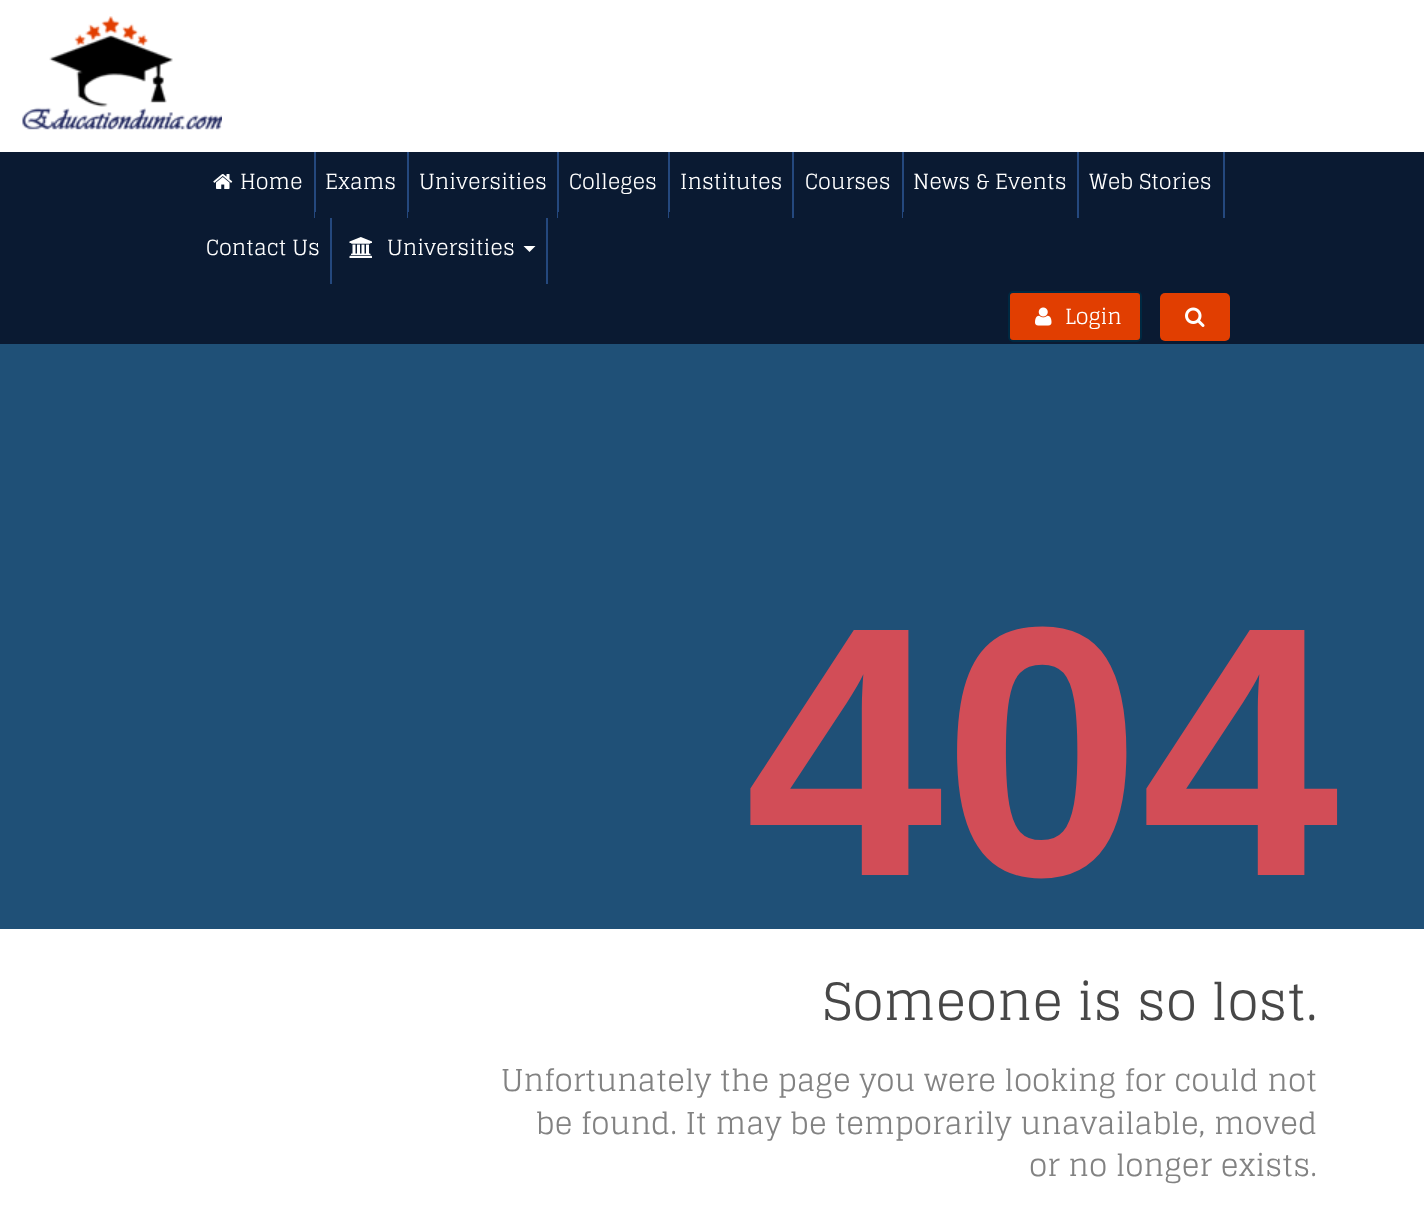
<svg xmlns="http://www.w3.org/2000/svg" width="1424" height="1218">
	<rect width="100%" height="100%" fill="#1F5077" />
	<rect x="0" y="0" width="1424" height="152" fill="#FFFFFF" />
	<image x="22" y="16" width="200" height="114" href="assets/img1.png" />
	<rect x="0" y="152" width="1424" height="192" fill="#0A1A32" />
	<rect x="314" y="152" width="2" height="66" fill="#24487E" />
	<image x="213" y="174" width="20" height="15" href="assets/img2.png" />
	<text x="240" y="189" font-family="Glegoo" font-size="21" fill="#FFFFFF">Home</text>
	<rect x="407" y="152" width="2" height="66" fill="#24487E" />
	<rect x="315" y="212" width="1" height="6" fill="#0A1A32" />
	<text x="325" y="189" font-family="Glegoo" font-size="21" fill="#FFFFFF">Exams</text>
	<rect x="557" y="152" width="2" height="66" fill="#24487E" />
	<rect x="408" y="212" width="1" height="6" fill="#0A1A32" />
	<text x="419" y="189" font-family="Glegoo" font-size="21" fill="#FFFFFF">Universities</text>
	<rect x="668" y="152" width="2" height="66" fill="#24487E" />
	<rect x="558" y="212" width="1" height="6" fill="#0A1A32" />
	<text x="569" y="189" font-family="Glegoo" font-size="21" fill="#FFFFFF">Colleges</text>
	<rect x="792" y="152" width="2" height="66" fill="#24487E" />
	<rect x="669" y="212" width="1" height="6" fill="#0A1A32" />
	<text x="680" y="189" font-family="Glegoo" font-size="21" fill="#FFFFFF">Institutes</text>
	<rect x="902" y="152" width="2" height="66" fill="#24487E" />
	<text x="805" y="189" font-family="Glegoo" font-size="21" fill="#FFFFFF">Courses</text>
	<rect x="1077" y="152" width="2" height="66" fill="#24487E" />
	<rect x="903" y="212" width="1" height="6" fill="#0A1A32" />
	<text x="913" y="189" font-family="Glegoo" font-size="21" fill="#FFFFFF">News &amp; Events</text>
	<rect x="1223" y="152" width="2" height="66" fill="#24487E" />
	<text x="1089" y="189" font-family="Glegoo" font-size="21" fill="#FFFFFF">Web Stories</text>
	<rect x="330" y="218" width="2" height="66" fill="#24487E" />
	<text x="206" y="255" font-family="Glegoo" font-size="21" fill="#FFFFFF">Contact Us</text>
	<rect x="546" y="218" width="2" height="66" fill="#24487E" />
	<image x="349" y="237" width="23" height="21" href="assets/img3.png" />
	<text x="387" y="255" font-family="Glegoo" font-size="21" fill="#FFFFFF">Universities</text>
	<path d="M523.5 246H535.5L529.5 252Z" fill="#FFFFFF" />
	<rect x="1009" y="292" width="132" height="49" rx="4" fill="#E13E01" stroke="#002942" stroke-width="2" />
	<image x="1035" y="307" width="17" height="19" href="assets/img4.png" />
	<text x="1065" y="324" font-family="Glegoo" font-size="21" fill="#FFFFFF">Login</text>
	<rect x="1160" y="293" width="70" height="48" rx="5" fill="#E13E01" />
	<image x="1185" y="307" width="20" height="20" href="assets/img5.png" />
	<text x="745" y="875" font-family="Liberation Sans" font-size="356" font-weight="700" fill="#D24D57">404</text>
	<rect x="0" y="929" width="1424" height="289" fill="#FFFFFF" />
	<text x="823" y="1020" font-family="Glegoo" font-size="51" fill="#474747">Someone is so lost.</text>
	<g font-family="Glegoo" font-size="30" fill="#828282">
		<text x="501" y="1091">Unfortunately the page you were looking for could not</text>
		<text x="536" y="1134">be found. It may be temporarily unavailable, moved</text>
		<text x="1029" y="1176">or no longer exists.</text>
	</g>
</svg>
